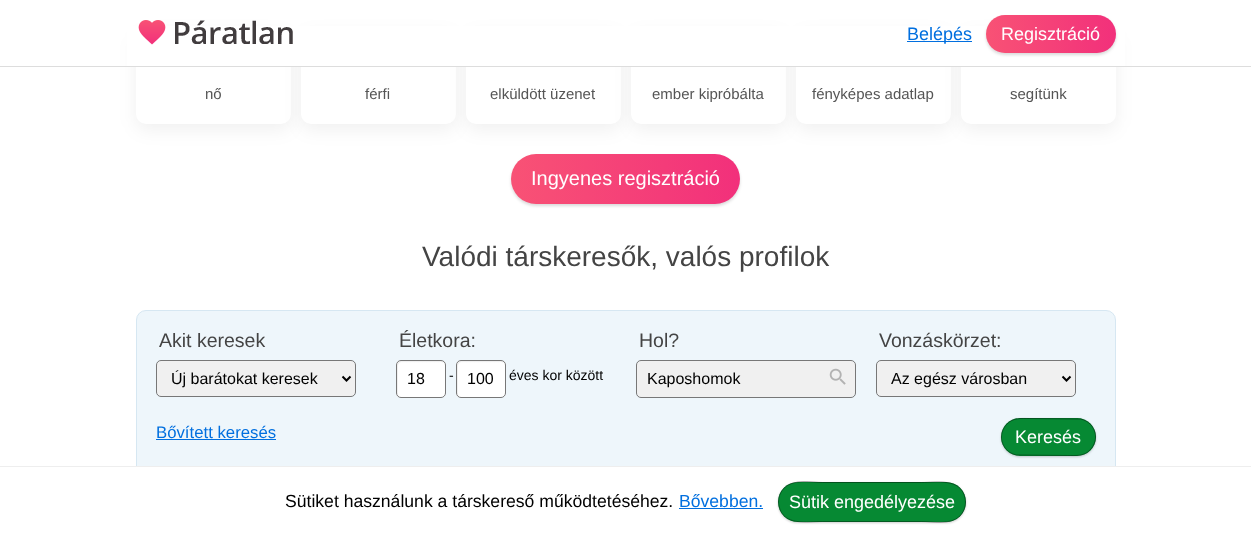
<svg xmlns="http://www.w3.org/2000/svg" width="1251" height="537">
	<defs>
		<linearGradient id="g1" gradientUnits="userSpaceOnUse" x1="986" y1="34" x2="1116" y2="34"><stop offset="0" stop-color="#F85275" /><stop offset="1" stop-color="#F2307B" /></linearGradient>
		<linearGradient id="g2" gradientUnits="userSpaceOnUse" x1="511" y1="179" x2="740" y2="179"><stop offset="0" stop-color="#F85275" /><stop offset="1" stop-color="#F2307B" /></linearGradient>
		<clipPath id="clip1"><rect x="396" y="360" width="50" height="38" rx="5" /></clipPath>
		<linearGradient id="g3" gradientUnits="userSpaceOnUse" x1="421" y1="361" x2="421" y2="397"><stop offset="0.01" stop-color="#F5F5F5" /><stop offset="0.05" stop-color="#FFFFFF" /></linearGradient>
		<clipPath id="clip2"><rect x="456" y="360" width="50" height="38" rx="5" /></clipPath>
		<linearGradient id="g4" gradientUnits="userSpaceOnUse" x1="481" y1="361" x2="481" y2="397"><stop offset="0.01" stop-color="#F5F5F5" /><stop offset="0.05" stop-color="#FFFFFF" /></linearGradient>
	</defs>
	<rect width="100%" height="100%" fill="#FFFFFF" />
	<rect x="136" y="35" width="155" height="95" rx="10" fill="#000000" fill-opacity="0.06" filter="blur(9px)" />
	<rect x="136" y="29" width="155" height="95" rx="10" fill="#FFFFFF" />
	<rect x="301" y="35" width="155" height="95" rx="10" fill="#000000" fill-opacity="0.06" filter="blur(9px)" />
	<rect x="301" y="29" width="155" height="95" rx="10" fill="#FFFFFF" />
	<rect x="466" y="35" width="155" height="95" rx="10" fill="#000000" fill-opacity="0.06" filter="blur(9px)" />
	<rect x="466" y="29" width="155" height="95" rx="10" fill="#FFFFFF" />
	<rect x="631" y="35" width="155" height="95" rx="10" fill="#000000" fill-opacity="0.06" filter="blur(9px)" />
	<rect x="631" y="29" width="155" height="95" rx="10" fill="#FFFFFF" />
	<rect x="796" y="35" width="155" height="95" rx="10" fill="#000000" fill-opacity="0.06" filter="blur(9px)" />
	<rect x="796" y="29" width="155" height="95" rx="10" fill="#FFFFFF" />
	<rect x="961" y="35" width="155" height="95" rx="10" fill="#000000" fill-opacity="0.06" filter="blur(9px)" />
	<rect x="961" y="29" width="155" height="95" rx="10" fill="#FFFFFF" />
	<rect x="127" y="26" width="998" height="40" fill="#FFFFFF" />
	<rect x="0" y="66" width="1251" height="1" fill="#DDDDDD" />
	<image x="138" y="20" width="28" height="25" href="assets/img1.png" />
	<image x="175" y="20" width="118" height="24" href="assets/img2.png" />
	<rect x="907" y="41" width="65" height="1" fill="#016FDF" />
	<text x="907" y="40" font-family="Liberation Sans" font-size="18" fill="#016FDF">Belépés</text>
	<rect x="986" y="17" width="130" height="38" rx="19" fill="#000000" fill-opacity="0.15" filter="blur(1.5px)" />
	<rect x="986" y="15" width="130" height="38" rx="19" fill="url(#g1)" />
	<text x="1001" y="40" font-family="Liberation Sans" font-size="18" fill="#FFFFFF">Regisztráció</text>
	<g font-family="Liberation Sans" font-size="15" fill="#555555">
		<text x="205" y="99">nő</text>
		<text x="365" y="99">férfi</text>
		<text x="490" y="99">elküldött üzenet</text>
		<text x="652" y="99">ember kipróbálta</text>
		<text x="812" y="99">fényképes adatlap</text>
		<text x="1010" y="99">segítünk</text>
	</g>
	<rect x="511" y="156" width="229" height="50" rx="25" fill="#000000" fill-opacity="0.15" filter="blur(1.5px)" />
	<rect x="511" y="154" width="229" height="50" rx="25" fill="url(#g2)" />
	<text x="531" y="185" font-family="Liberation Sans" font-size="20" fill="#FFFFFF">Ingyenes regisztráció</text>
	<text x="422" y="266" font-family="Liberation Sans" font-size="28" fill="#444444">Valódi társkeresők, valós profilok</text>
	<rect x="136.5" y="310.5" width="979" height="165" rx="9.5" fill="#EEF6FB" stroke="#D6E7F2" />
	<text x="159" y="347" font-family="Liberation Sans" font-size="19.5" fill="#444444">Akit keresek</text>
	<path d="M161 361C155 361 157 371 157 374V388C157 391 156 396 161 396H351C356 396 355 391 355 388V370C355 366 356 361 351 361Z" fill="#F0F0F0" />
	<rect x="156.5" y="360.5" width="199" height="36" rx="4.5" fill="none" stroke="#777777" />
	<path d="M342.5 376.5L346.5 380.5L350.5 376.5" fill="none" stroke="#000000" stroke-width="2" />
	<text x="171" y="384" font-family="Liberation Sans" font-size="16" fill="#000000">Új barátokat keresek</text>
	<text x="399" y="347" font-family="Liberation Sans" font-size="19.5" fill="#444444">Életkora:</text>
	<g clip-path="url(#clip1)">
		<rect x="396" y="361" width="50" height="36" fill="url(#g3)" />
	</g>
	<path d="M402 362H442L444 363C443 360 437 361 434 361H421C393 361 397 356 397 384C397 387 395 394 399 396L398 394V366C398 364 400 362 402 362Z" fill="#F0F0F0" />
	<rect x="396.5" y="360.5" width="49" height="37" rx="4.5" fill="none" stroke="#777777" />
	<text x="407" y="384" font-family="Liberation Sans" font-size="16" fill="#000000">18</text>
	<text x="449" y="380" font-family="Liberation Sans" font-size="14" fill="#000000">-</text>
	<g clip-path="url(#clip2)">
		<rect x="456" y="361" width="50" height="36" fill="url(#g4)" />
	</g>
	<path d="M462 362H502L504 363C503 360 497 361 494 361H481C453 361 457 356 457 384C457 387 455 394 459 396L458 394V366C458 364 460 362 462 362Z" fill="#F0F0F0" />
	<rect x="456.5" y="360.5" width="49" height="37" rx="4.5" fill="none" stroke="#777777" />
	<text x="467" y="384" font-family="Liberation Sans" font-size="16" fill="#000000">100</text>
	<text x="509" y="380" font-family="Liberation Sans" font-size="14" fill="#000000">éves kor között</text>
	<text x="639" y="347" font-family="Liberation Sans" font-size="19.5" fill="#444444">Hol?</text>
	<path d="M641 361C635 361 637 371 637 374V388C637 391 636 397 641 397H851C856 397 855 391 855 388V374C855 371 857 361 851 361Z" fill="#F0F0F0" />
	<rect x="636.5" y="360.5" width="219" height="37" rx="4.5" fill="none" stroke="#777777" />
	<text x="647" y="384" font-family="Liberation Sans" font-size="16" fill="#000000">Kaposhomok</text>
	<image x="829" y="368" width="17" height="17" href="assets/img3.png" />
	<text x="879" y="347" font-family="Liberation Sans" font-size="19.5" fill="#444444">Vonzáskörzet:</text>
	<path d="M881 361C875 361 877 371 877 374V388C877 391 876 396 881 396H1071C1076 396 1075 391 1075 388V370C1075 366 1076 361 1071 361Z" fill="#F0F0F0" />
	<rect x="876.5" y="360.5" width="199" height="36" rx="4.5" fill="none" stroke="#777777" />
	<path d="M1062.5 376.5L1066.5 380.5L1070.5 376.5" fill="none" stroke="#000000" stroke-width="2" />
	<text x="891" y="384" font-family="Liberation Sans" font-size="16" fill="#000000">Az egész városban</text>
	<text x="156" y="438" font-family="Liberation Sans" font-size="16.75" fill="#016FDF">Bővített keresés</text>
	<rect x="156" y="439" width="120" height="1" fill="#016FDF" />
	<rect x="1001" y="419" width="95" height="38" rx="19" fill="#000000" fill-opacity="0.2" filter="blur(1px)" />
	<rect x="1001" y="418" width="95" height="38" rx="19" fill="#068933" />
	<path d="M1007 424C1013 417.5 1021 418.5 1029.5 418.5L1080.5 419C1088.5 420.5 1094.5 427 1095.5 435C1096 440.5 1094 446 1090 450" fill="none" stroke="#000000" stroke-opacity="0.4" />
	<path d="M1090 450C1084 456.5 1076 455.5 1067.5 455.5L1016.5 455C1008.5 453.5 1002.5 447 1001.5 439C1001 433.5 1003 428 1007 424" fill="none" stroke="#000000" stroke-opacity="0.35" />
	<text x="1015" y="443" font-family="Liberation Sans" font-size="18" fill="#FFFFFF">Keresés</text>
	<rect x="136" y="467" width="980" height="9" fill="#FFFFFF" />
	<rect x="0" y="466" width="1251" height="1" fill="#EEEEEE" />
	<text x="285" y="507" font-family="Liberation Sans" font-size="17.6" fill="#000000">Sütiket használunk a társkereső működtetéséhez.</text>
	<text x="679" y="507" font-family="Liberation Sans" font-size="17.6" fill="#016FDF">Bővebben.</text>
	<rect x="679" y="508" width="84" height="1" fill="#016FDF" />
	<rect x="778" y="483" width="188" height="40" rx="20" fill="#000000" fill-opacity="0.2" filter="blur(1px)" />
	<rect x="778" y="482" width="188" height="40" rx="20" fill="#068933" />
	<path d="M784 488C793.5 478.5 812 482.5 822.5 482.5H921.5C936 482.5 961 477.5 965 498C966.5 504.5 964.5 511 960 516" fill="none" stroke="#000000" stroke-opacity="0.4" />
	<path d="M960 516C950.5 525.5 932 521.5 921.5 521.5H822.5C808 521.5 783 526.5 779 506C777.5 499.5 779.5 493 784 488" fill="none" stroke="#000000" stroke-opacity="0.35" />
	<text x="789" y="508" font-family="Liberation Sans" font-size="18" fill="#FFFFFF">Sütik engedélyezése</text>
</svg>
